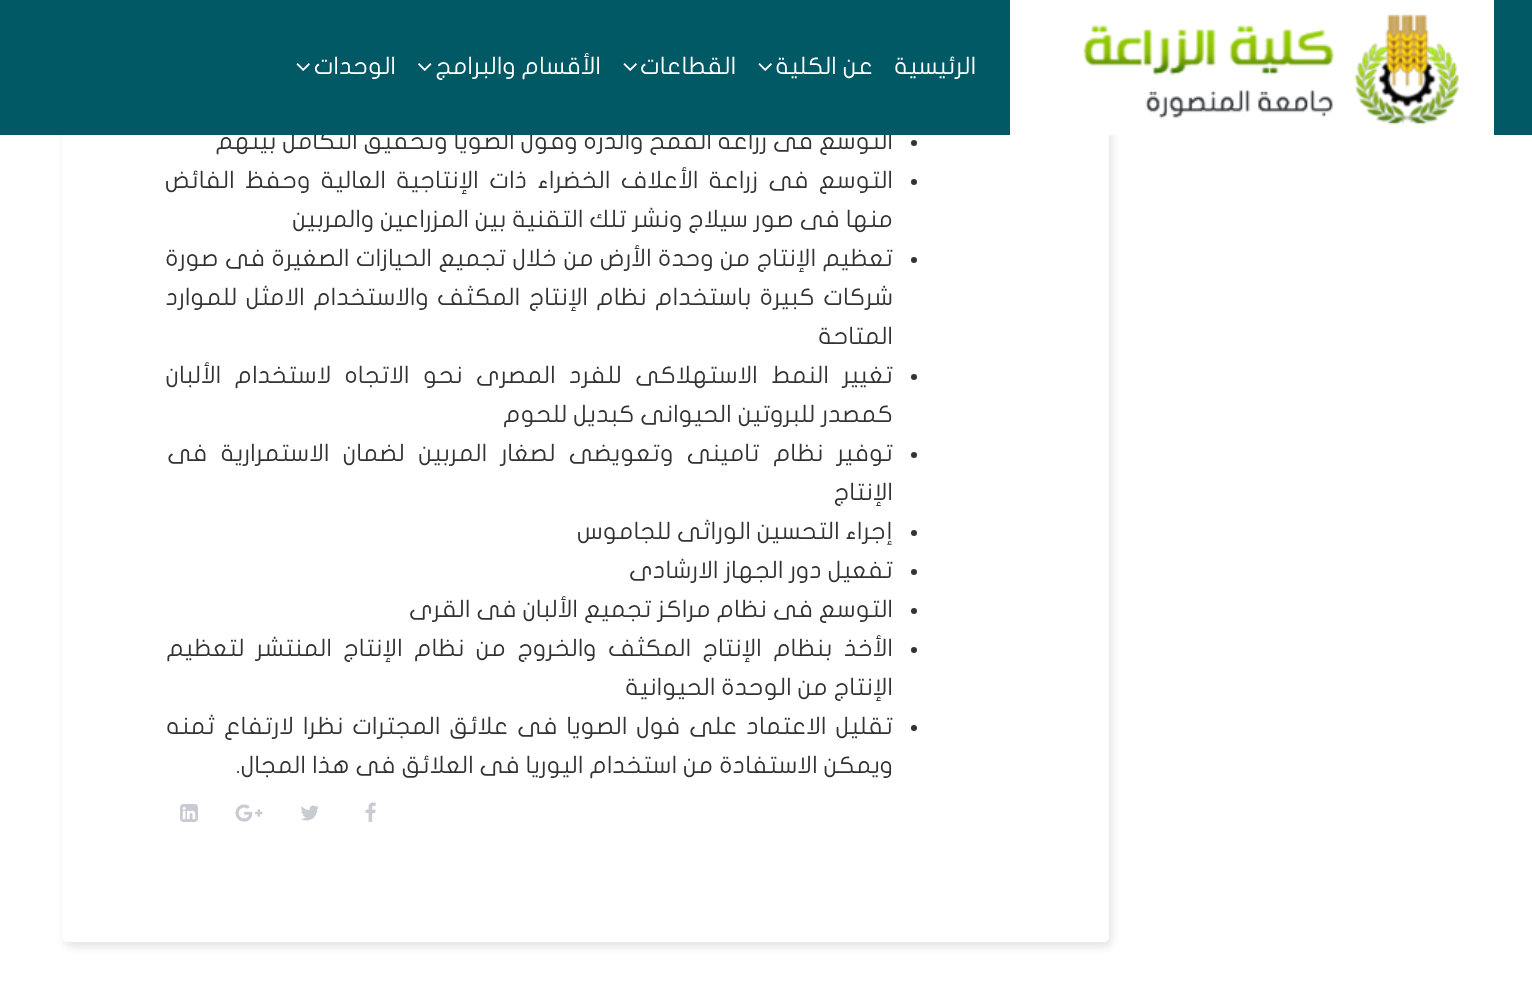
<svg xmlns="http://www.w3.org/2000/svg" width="1532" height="997">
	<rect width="100%" height="100%" fill="#FFFFFF" />
	<rect x="65" y="-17" width="1047" height="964" rx="5" fill="#000000" fill-opacity="0.1" filter="blur(4px)" />
	<rect x="62" y="-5" width="1047" height="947" rx="5" fill="#FFFFFF" />
	<text x="893" y="149" font-family="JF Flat" font-size="24" direction="rtl" fill="#333333">التوسع فى زراعة القمح والذرة وفول الصويا وتحقيق التكامل بينهم</text>
	<rect x="0" y="0" width="1532" height="135" fill="#005965" />
	<rect x="1010" y="0" width="484" height="135" fill="#FFFFFF" />
	<image x="1083" y="14" width="377" height="111" href="assets/img1.png" />
	<g font-family="JF Flat" font-size="24" direction="rtl" fill="#FFFFFF">
		<text x="976" y="74">الرئيسية</text>
		<text x="873" y="74">عن الكلية</text>
	</g>
	<image x="758" y="63" width="14" height="8" href="assets/img2.png" />
	<text x="736" y="74" font-family="JF Flat" font-size="24" direction="rtl" fill="#FFFFFF">القطاعات</text>
	<image x="623" y="63" width="14" height="8" href="assets/img2.png" />
	<text x="601" y="74" font-family="JF Flat" font-size="24" direction="rtl" fill="#FFFFFF">الأقسام والبرامج</text>
	<image x="418" y="63" width="14" height="8" href="assets/img3.png" />
	<text x="396" y="74" font-family="JF Flat" font-size="24" direction="rtl" fill="#FFFFFF">الوحدات</text>
	<image x="296" y="63" width="14" height="8" href="assets/img2.png" />
	<circle cx="914" cy="143" r="3" fill="#333333" />
	<circle cx="914" cy="182" r="3" fill="#333333" />
	<g font-family="JF Flat" font-size="24" direction="rtl" fill="#333333">
		<text x="893" y="188" word-spacing="4.5">التوسع فى زراعة الأعلاف الخضراء ذات الإنتاجية العالية وحفظ الفائض</text>
		<text x="893" y="227">منها فى صور سيلاج ونشر تلك التقنية بين المزراعين والمربين</text>
	</g>
	<circle cx="914" cy="260" r="3" fill="#333333" />
	<g font-family="JF Flat" font-size="24" direction="rtl" fill="#333333">
		<text x="893" y="266" word-spacing="0.5">تعظيم الإنتاج من وحدة الأرض من خلال تجميع الحيازات الصغيرة فى صورة</text>
		<text x="893" y="305" word-spacing="2.5">شركات كبيرة باستخدام نظام الإنتاج المكثف والاستخدام الامثل للموارد</text>
		<text x="893" y="344">المتاحة</text>
	</g>
	<circle cx="914" cy="377" r="3" fill="#333333" />
	<g font-family="JF Flat" font-size="24" direction="rtl" fill="#333333">
		<text x="893" y="383" word-spacing="7.5">تغيير النمط الاستهلاكى للفرد المصرى نحو الاتجاه لاستخدام الألبان</text>
		<text x="893" y="422">كمصدر للبروتين الحيوانى كبديل للحوم</text>
	</g>
	<circle cx="914" cy="455" r="3" fill="#333333" />
	<g font-family="JF Flat" font-size="24" direction="rtl" fill="#333333">
		<text x="893" y="461" word-spacing="7.5">توفير نظام تامينى وتعويضى لصغار المربين لضمان الاستمرارية فى</text>
		<text x="893" y="500">الإنتاج</text>
	</g>
	<circle cx="914" cy="533" r="3" fill="#333333" />
	<text x="893" y="539" font-family="JF Flat" font-size="24" direction="rtl" fill="#333333">إجراء التحسين الوراثى للجاموس</text>
	<circle cx="914" cy="572" r="3" fill="#333333" />
	<text x="893" y="578" font-family="JF Flat" font-size="24" direction="rtl" fill="#333333">تفعيل دور الجهاز الارشادى</text>
	<circle cx="914" cy="611" r="3" fill="#333333" />
	<text x="893" y="617" font-family="JF Flat" font-size="24" direction="rtl" fill="#333333">التوسع فى نظام مراكز تجميع الألبان فى القرى</text>
	<circle cx="914" cy="650" r="3" fill="#333333" />
	<g font-family="JF Flat" font-size="24" direction="rtl" fill="#333333">
		<text x="893" y="656" word-spacing="5.5">الأخذ بنظام الإنتاج المكثف والخروج من نظام الإنتاج المنتشر لتعظيم</text>
		<text x="893" y="695">الإنتاج من الوحدة الحيوانية</text>
	</g>
	<circle cx="914" cy="728" r="3" fill="#333333" />
	<g font-family="JF Flat" font-size="24" direction="rtl" fill="#333333">
		<text x="893" y="734" word-spacing="3">تقليل الاعتماد على فول الصويا فى علائق المجترات نظرا لارتفاع ثمنه</text>
		<text x="893" y="773">ويمكن الاستفادة من استخدام اليوريا فى العلائق فى هذا المجال.</text>
	</g>
	<image x="365" y="802" width="11" height="20" href="assets/img4.png" />
	<image x="301" y="805" width="18" height="16" href="assets/img5.png" />
	<image x="235" y="804" width="28" height="18" href="assets/img6.png" />
	<image x="180" y="804" width="18" height="18" href="assets/img7.png" />
</svg>
